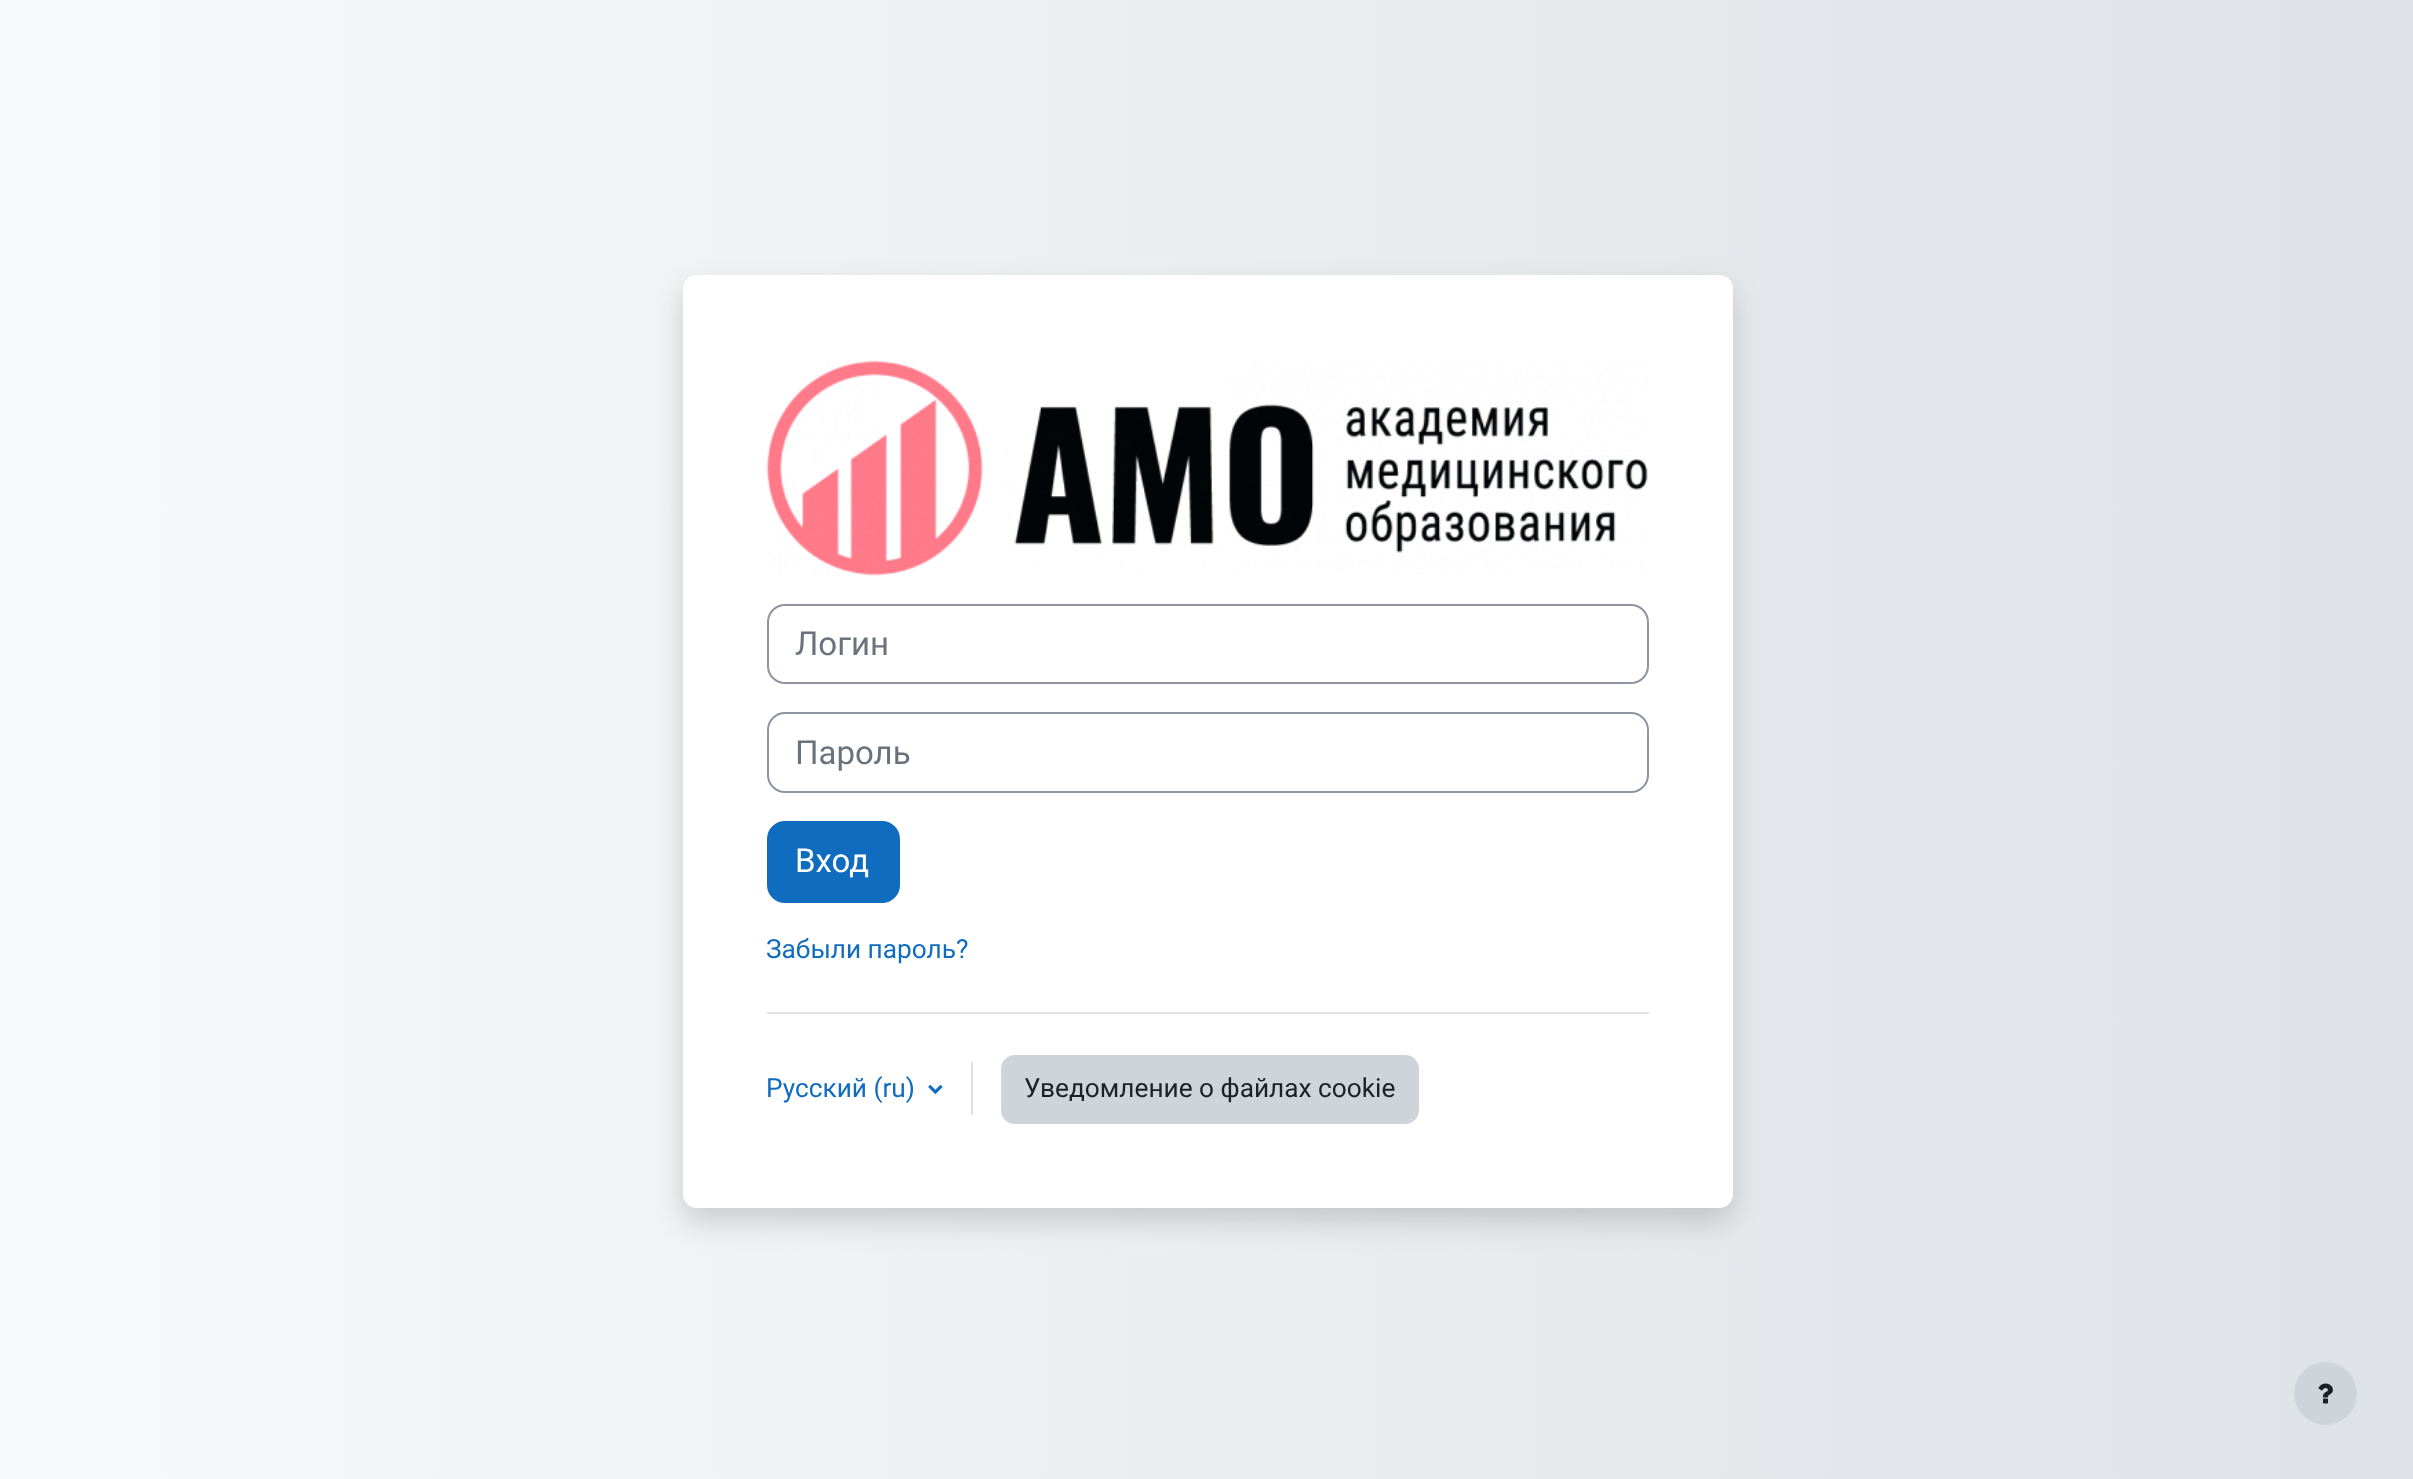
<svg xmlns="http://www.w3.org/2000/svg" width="2413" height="1479">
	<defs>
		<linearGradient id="g1" gradientUnits="userSpaceOnUse" x1="0" y1="740" x2="2413" y2="740"><stop offset="0" stop-color="#F8F9FA" /><stop offset="1" stop-color="#DEE2E6" /></linearGradient>
	</defs>
	<rect width="100%" height="100%" fill="#FFFFFF" />
	<rect x="0" y="0" width="2413" height="1479" fill="url(#g1)" />
	<rect x="683" y="289" width="1050" height="933" rx="14" fill="#000000" fill-opacity="0.15" filter="blur(14px)" />
	<rect x="683" y="275" width="1050" height="933" rx="14" fill="#FFFFFF" />
	<image x="766" y="360" width="882" height="216" href="assets/img1.png" />
	<rect x="768" y="605" width="880" height="78" rx="17" fill="none" stroke="#8F959E" stroke-width="2" />
	<text x="795" y="655" font-family="Roboto" font-size="33" fill="#6A737B">Логин</text>
	<rect x="768" y="713" width="880" height="79" rx="17" fill="none" stroke="#8F959E" stroke-width="2" />
	<text x="795" y="764" font-family="Roboto" font-size="33" fill="#6A737B">Пароль</text>
	<rect x="768" y="822" width="131" height="80" rx="17" fill="#0F6CBF" stroke="#0F6CBF" stroke-width="2" />
	<text x="795" y="872" font-family="Roboto" font-size="33" fill="#FFFFFF">Вход</text>
	<text x="766" y="958" font-family="Roboto" font-size="26.25" fill="#0F6CBF">Забыли пароль?</text>
	<rect x="767" y="1012" width="882" height="2" fill="#DEE2E6" />
	<text x="766" y="1097" font-family="Roboto" font-size="26.25" fill="#0F6CBF">Русский (ru)</text>
	<image x="928" y="1085" width="15" height="9" href="assets/img2.png" />
	<rect x="971" y="1062" width="2" height="53" fill="#DEE2E6" />
	<rect x="1002" y="1056" width="416" height="67" rx="13" fill="#CED4DA" stroke="#CED4DA" stroke-width="2" />
	<text x="1024" y="1097" font-family="Roboto" font-size="26.25" fill="#1D2125">Уведомление о файлах cookie</text>
	<circle cx="2325.5" cy="1393.5" r="31.5" fill="#CED4DA" />
	<image x="2318" y="1383" width="15" height="21" href="assets/img3.png" />
</svg>
